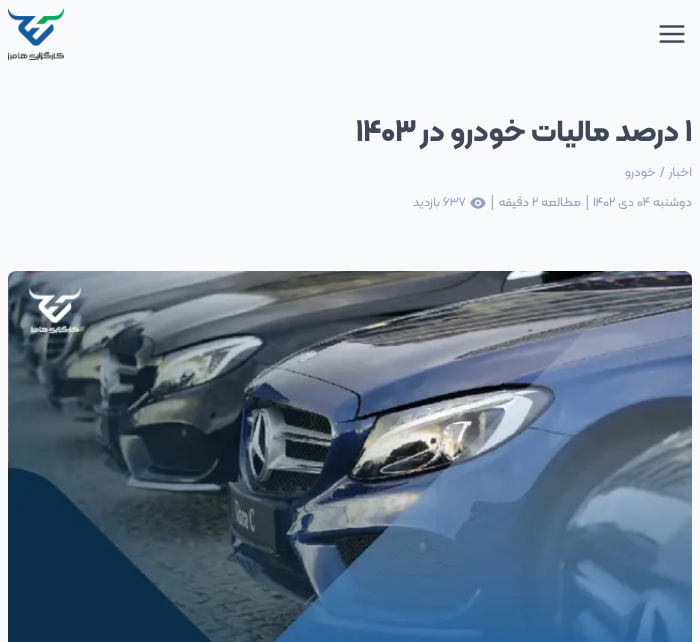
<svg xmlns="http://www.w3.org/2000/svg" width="700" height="642">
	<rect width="100%" height="100%" fill="#F9FAFB" />
	<image x="659" y="25" width="26" height="18" href="assets/img1.png" />
	<image x="8" y="8" width="56" height="52" href="assets/img2.png" />
	<text x="685" y="141" font-family="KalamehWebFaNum" font-size="30" font-weight="700" fill="#414757">1</text>
	<text x="679" y="141" font-family="KalamehWebFaNum" font-size="30" font-weight="700" direction="rtl" fill="#414757">درصد مالیات خودرو در</text>
	<text x="356" y="141" font-family="KalamehWebFaNum" font-size="30" font-weight="700" fill="#414757">1403</text>
	<text x="692" y="176" font-family="KalamehWebFaNum" font-size="13" direction="rtl" fill="#959FBF">اخبار</text>
	<text x="660" y="176" font-family="KalamehWebFaNum" font-size="13" fill="#959FBF">/</text>
	<g font-family="KalamehWebFaNum" font-size="13" direction="rtl" fill="#959FBF">
		<text x="656" y="176">خودرو</text>
		<text x="692" y="206">دوشنبه</text>
	</g>
	<text x="637" y="206" font-family="KalamehWebFaNum" font-size="13" fill="#959FBF">04</text>
	<text x="634" y="206" font-family="KalamehWebFaNum" font-size="13" direction="rtl" fill="#959FBF">دی</text>
	<text x="593" y="206" font-family="KalamehWebFaNum" font-size="13" fill="#959FBF">1402</text>
	<text x="585" y="207" font-family="KalamehWebFaNum" font-size="16" font-weight="300" fill="#959FBF">|</text>
	<text x="581" y="206" font-family="KalamehWebFaNum" font-size="13" direction="rtl" fill="#959FBF">مطالعه</text>
	<text x="532" y="206" font-family="KalamehWebFaNum" font-size="13" fill="#959FBF">2</text>
	<text x="529" y="206" font-family="KalamehWebFaNum" font-size="13" direction="rtl" fill="#959FBF">دقیقه</text>
	<text x="490" y="207" font-family="KalamehWebFaNum" font-size="16" font-weight="300" fill="#959FBF">|</text>
	<image x="470" y="197" width="16" height="12" href="assets/img3.png" />
	<text x="443" y="206" font-family="KalamehWebFaNum" font-size="13" fill="#959FBF">637</text>
	<text x="440" y="206" font-family="KalamehWebFaNum" font-size="13" direction="rtl" fill="#959FBF">بازدید</text>
	<image x="8" y="271" width="684" height="371" href="assets/img4.png" />
</svg>
